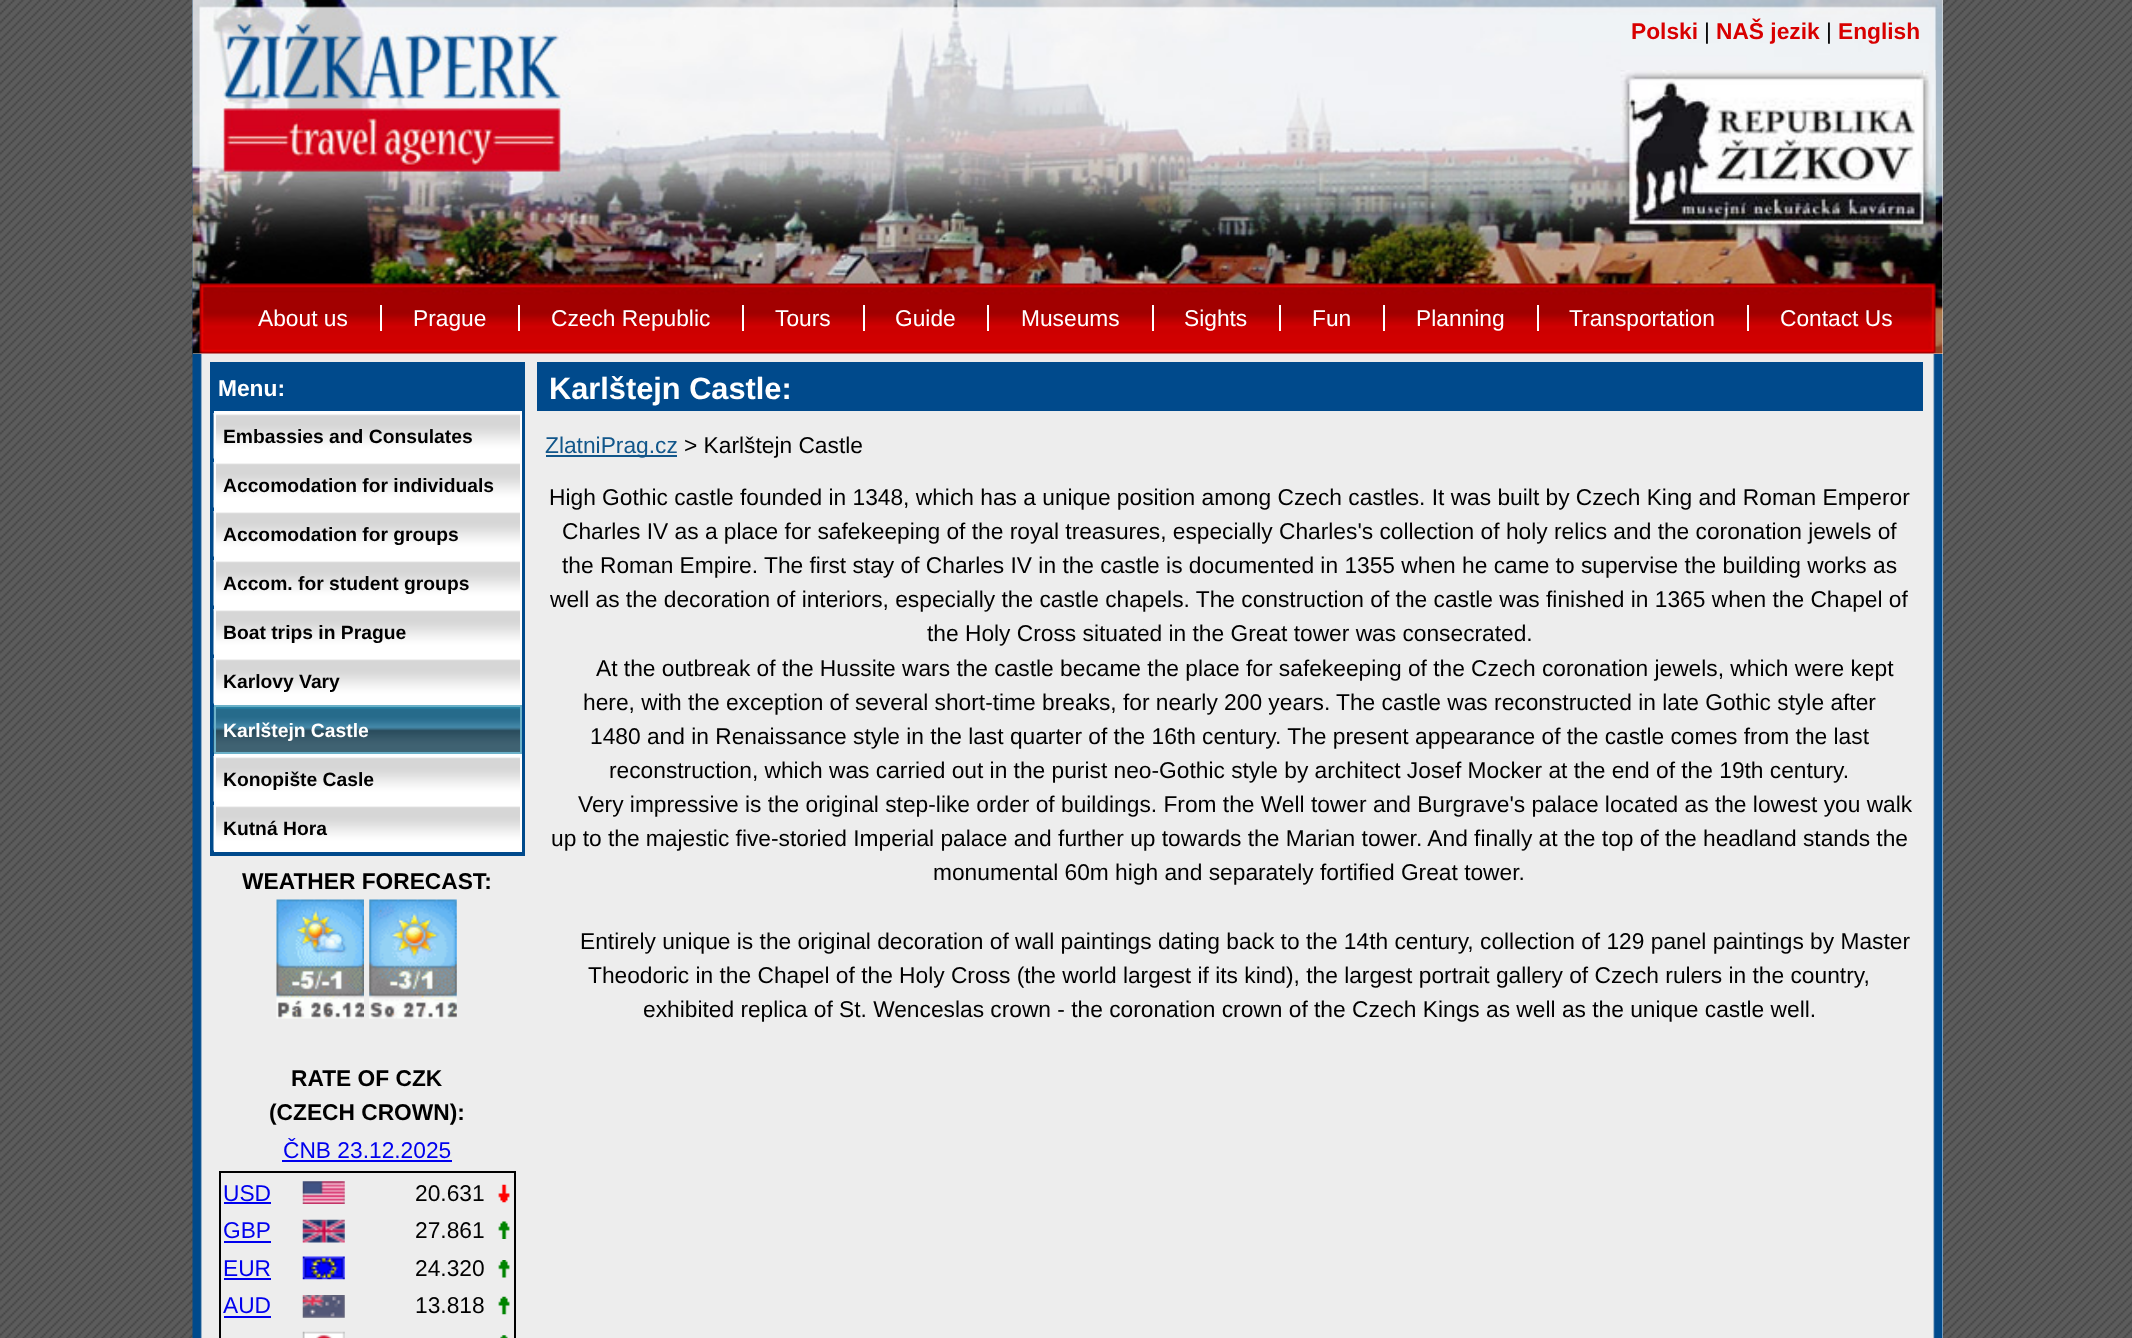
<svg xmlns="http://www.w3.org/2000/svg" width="2132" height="1338">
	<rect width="100%" height="100%" fill="#FFFFFF" />
	<image x="0" y="0" width="2132" height="1338" href="assets/img1.png" />
	<rect x="1942" y="354" width="1" height="984" fill="#EDEDED" />
	<image x="192" y="0" width="1751" height="1338" href="assets/img2.png" />
	<rect x="193" y="0" width="1750" height="354" fill="#EDEDED" />
	<image x="192" y="0" width="1751" height="354" href="assets/img3.png" />
	<text x="1631" y="39" font-family="Liberation Sans" font-size="22.75" font-weight="700" fill="#D80000">Polski</text>
	<text x="1704" y="39" font-family="Liberation Sans" font-size="22.75" fill="#000000">|</text>
	<text x="1716" y="39" font-family="Liberation Sans" font-size="22.75" font-weight="700" fill="#D80000">NAŠ jezik</text>
	<text x="1826" y="39" font-family="Liberation Sans" font-size="22.75" fill="#000000">|</text>
	<text x="1838" y="39" font-family="Liberation Sans" font-size="22.75" font-weight="700" fill="#D80000">English</text>
	<image x="1620" y="70" width="316" height="163" href="assets/img4.png" />
	<g font-family="Liberation Sans" font-size="22.75" fill="#FFFFFF">
		<text x="258" y="326">About us</text>
		<text x="413" y="326">Prague</text>
	</g>
	<rect x="380" y="305" width="2" height="26" fill="#FFFFFF" />
	<text x="551" y="326" font-family="Liberation Sans" font-size="22.75" fill="#FFFFFF">Czech Republic</text>
	<rect x="518" y="305" width="2" height="26" fill="#FFFFFF" />
	<text x="775" y="326" font-family="Liberation Sans" font-size="22.75" fill="#FFFFFF">Tours</text>
	<rect x="742" y="305" width="2" height="26" fill="#FFFFFF" />
	<text x="895" y="326" font-family="Liberation Sans" font-size="22.75" fill="#FFFFFF">Guide</text>
	<rect x="863" y="305" width="2" height="26" fill="#FFFFFF" />
	<text x="1021" y="326" font-family="Liberation Sans" font-size="22.75" fill="#FFFFFF">Museums</text>
	<rect x="987" y="305" width="2" height="26" fill="#FFFFFF" />
	<text x="1184" y="326" font-family="Liberation Sans" font-size="22.75" fill="#FFFFFF">Sights</text>
	<rect x="1152" y="305" width="2" height="26" fill="#FFFFFF" />
	<text x="1312" y="326" font-family="Liberation Sans" font-size="22.75" fill="#FFFFFF">Fun</text>
	<rect x="1279" y="305" width="2" height="26" fill="#FFFFFF" />
	<text x="1416" y="326" font-family="Liberation Sans" font-size="22.75" fill="#FFFFFF">Planning</text>
	<rect x="1383" y="305" width="2" height="26" fill="#FFFFFF" />
	<text x="1569" y="326" font-family="Liberation Sans" font-size="22.75" fill="#FFFFFF">Transportation</text>
	<rect x="1537" y="305" width="2" height="26" fill="#FFFFFF" />
	<text x="1780" y="326" font-family="Liberation Sans" font-size="22.75" fill="#FFFFFF">Contact Us</text>
	<rect x="1747" y="305" width="2" height="26" fill="#FFFFFF" />
	<rect x="210" y="362" width="315" height="494" fill="#004A8C" />
	<text x="218" y="396" font-family="Liberation Sans" font-size="22.75" font-weight="700" fill="#FFFFFF">Menu:</text>
	<image x="213" y="413" width="307" height="46" href="assets/img5.png" />
	<rect x="215" y="412" width="306" height="47" fill="none" stroke="#FFFFFF" stroke-width="2" />
	<text x="223" y="443" font-family="Liberation Sans" font-size="19.3" font-weight="700" fill="#000000">Embassies and Consulates</text>
	<image x="213" y="462" width="307" height="46" href="assets/img5.png" />
	<rect x="215" y="461" width="306" height="47" fill="none" stroke="#FFFFFF" stroke-width="2" />
	<text x="223" y="492" font-family="Liberation Sans" font-size="19.3" font-weight="700" fill="#000000">Accomodation for individuals</text>
	<image x="213" y="511" width="307" height="46" href="assets/img5.png" />
	<rect x="215" y="510" width="306" height="47" fill="none" stroke="#FFFFFF" stroke-width="2" />
	<text x="223" y="541" font-family="Liberation Sans" font-size="19.3" font-weight="700" fill="#000000">Accomodation for groups</text>
	<image x="213" y="560" width="307" height="46" href="assets/img5.png" />
	<rect x="215" y="559" width="306" height="47" fill="none" stroke="#FFFFFF" stroke-width="2" />
	<text x="223" y="590" font-family="Liberation Sans" font-size="19.3" font-weight="700" fill="#000000">Accom. for student groups</text>
	<image x="213" y="609" width="307" height="46" href="assets/img5.png" />
	<rect x="215" y="608" width="306" height="47" fill="none" stroke="#FFFFFF" stroke-width="2" />
	<text x="223" y="639" font-family="Liberation Sans" font-size="19.3" font-weight="700" fill="#000000">Boat trips in Prague</text>
	<image x="213" y="658" width="307" height="46" href="assets/img5.png" />
	<rect x="215" y="657" width="306" height="47" fill="none" stroke="#FFFFFF" stroke-width="2" />
	<text x="223" y="688" font-family="Liberation Sans" font-size="19.3" font-weight="700" fill="#000000">Karlovy Vary</text>
	<image x="213" y="707" width="307" height="46" href="assets/img6.png" />
	<rect x="215" y="706" width="306" height="47" fill="none" stroke="#6CB1C8" stroke-width="2" />
	<text x="223" y="737" font-family="Liberation Sans" font-size="19.3" font-weight="700" fill="#FFFFFF">Karlštejn Castle</text>
	<image x="213" y="756" width="307" height="46" href="assets/img5.png" />
	<rect x="215" y="755" width="306" height="47" fill="none" stroke="#FFFFFF" stroke-width="2" />
	<text x="223" y="786" font-family="Liberation Sans" font-size="19.3" font-weight="700" fill="#000000">Konopište Casle</text>
	<image x="213" y="805" width="307" height="46" href="assets/img5.png" />
	<rect x="215" y="804" width="306" height="47" fill="none" stroke="#FFFFFF" stroke-width="2" />
	<text x="223" y="835" font-family="Liberation Sans" font-size="19.3" font-weight="700" fill="#000000">Kutná Hora</text>
	<text x="242" y="889" font-family="Liberation Sans" font-size="22.75" font-weight="700" fill="#000000">WEATHER FORECAST:</text>
	<image x="276" y="899" width="88" height="120" href="assets/img7.png" />
	<image x="369" y="899" width="88" height="120" href="assets/img8.png" />
	<g font-family="Liberation Sans" font-size="22.75" font-weight="700" fill="#000000">
		<text x="291" y="1086">RATE OF CZK</text>
		<text x="269" y="1120">(CZECH CROWN):</text>
	</g>
	<text x="283" y="1158" font-family="Liberation Sans" font-size="22.75" fill="#0000EE">ČNB 23.12.2025</text>
	<rect x="282" y="1160" width="170" height="2" fill="#0000EE" />
	<rect x="220" y="1172" width="295" height="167" fill="none" stroke="#000000" stroke-width="2" />
	<text x="223" y="1201" font-family="Liberation Sans" font-size="22.75" fill="#0000EE">USD</text>
	<rect x="224" y="1202" width="47" height="2" fill="#0000EE" />
	<image x="302" y="1181" width="43" height="23" href="assets/img9.png" />
	<text x="415" y="1201" font-family="Liberation Sans" font-size="22.75" fill="#000000">20.631</text>
	<image x="498" y="1184" width="12" height="19" href="assets/img10.png" />
	<text x="223" y="1238" font-family="Liberation Sans" font-size="22.75" fill="#0000EE">GBP</text>
	<rect x="224" y="1241" width="47" height="2" fill="#0000EE" />
	<image x="302" y="1219" width="43" height="24" href="assets/img11.png" />
	<text x="415" y="1238" font-family="Liberation Sans" font-size="22.75" fill="#000000">27.861</text>
	<image x="498" y="1221" width="12" height="18" href="assets/img12.png" />
	<text x="223" y="1276" font-family="Liberation Sans" font-size="22.75" fill="#0000EE">EUR</text>
	<rect x="224" y="1278" width="47" height="2" fill="#0000EE" />
	<image x="302" y="1256" width="43" height="24" href="assets/img13.png" />
	<text x="415" y="1276" font-family="Liberation Sans" font-size="22.75" fill="#000000">24.320</text>
	<image x="498" y="1260" width="12" height="18" href="assets/img14.png" />
	<text x="223" y="1313" font-family="Liberation Sans" font-size="22.75" fill="#0000EE">AUD</text>
	<rect x="224" y="1316" width="47" height="2" fill="#0000EE" />
	<image x="302" y="1295" width="43" height="23" href="assets/img15.png" />
	<text x="415" y="1313" font-family="Liberation Sans" font-size="22.75" fill="#000000">13.818</text>
	<image x="498" y="1296" width="12" height="19" href="assets/img16.png" />
	<image x="302" y="1331" width="43" height="7" href="assets/img17.png" />
	<image x="500" y="1335" width="8" height="3" href="assets/img18.png" />
	<rect x="537" y="362" width="1386" height="49" fill="#004A8C" />
	<text x="549" y="399" font-family="Liberation Sans" font-size="30.75" font-weight="700" fill="#FFFFFF">Karlštejn Castle:</text>
	<rect x="546" y="455" width="131" height="2" fill="#11568A" />
	<text x="545" y="453" font-family="Liberation Sans" font-size="22.75" fill="#11568A">ZlatniPrag.cz</text>
	<g font-family="Liberation Sans" font-size="22.75" fill="#000000">
		<text x="684" y="453">&gt; Karlštejn Castle</text>
		<text x="549" y="505">High Gothic castle founded in 1348, which has a unique position among Czech castles. It was built by Czech King and Roman Emperor</text>
		<text x="562" y="539">Charles IV as a place for safekeeping of the royal treasures, especially Charles's collection of holy relics and the coronation jewels of</text>
		<text x="562" y="573">the Roman Empire.</text>
		<text x="764" y="573">The first stay of Charles IV in the castle is documented in 1355 when he came to supervise the building works as</text>
		<text x="550" y="607">well as the decoration of interiors, especially the castle chapels. The construction of the castle was finished in 1365 when the Chapel of</text>
		<text x="927" y="641">the Holy Cross situated in the Great tower was consecrated.</text>
		<text x="596" y="676">At the outbreak of the Hussite wars the castle became the place for safekeeping of the Czech coronation jewels, which were kept</text>
		<text x="583" y="710">here, with the exception of several short-time breaks, for nearly 200 years.</text>
		<text x="1336" y="710">The castle was reconstructed in late Gothic style after</text>
		<text x="590" y="744">1480 and in Renaissance style in the last quarter of the 16th century. The present appearance of the castle comes from the last</text>
		<text x="609" y="778">reconstruction, which was carried out in the purist neo-Gothic style by architect Josef Mocker at the end of the 19th century.</text>
		<text x="578" y="812">Very impressive is the original step-like order of buildings. From the Well tower and Burgrave's palace located as the lowest you walk</text>
		<text x="551" y="846">up to the majestic five-storied Imperial palace and further up towards the Marian tower. And finally at the top of the headland stands the</text>
		<text x="933" y="880">monumental 60m high and separately fortified Great tower.</text>
		<text x="580" y="949">Entirely unique is the original decoration of wall paintings dating back to the 14th century, collection of 129 panel paintings by Master</text>
		<text x="588" y="983">Theodoric in the Chapel of the Holy Cross (the world largest if its kind), the largest portrait gallery of Czech rulers in the country,</text>
		<text x="643" y="1017">exhibited replica of St. Wenceslas crown - the coronation crown of the Czech Kings as well as the unique castle well.</text>
	</g>
</svg>
